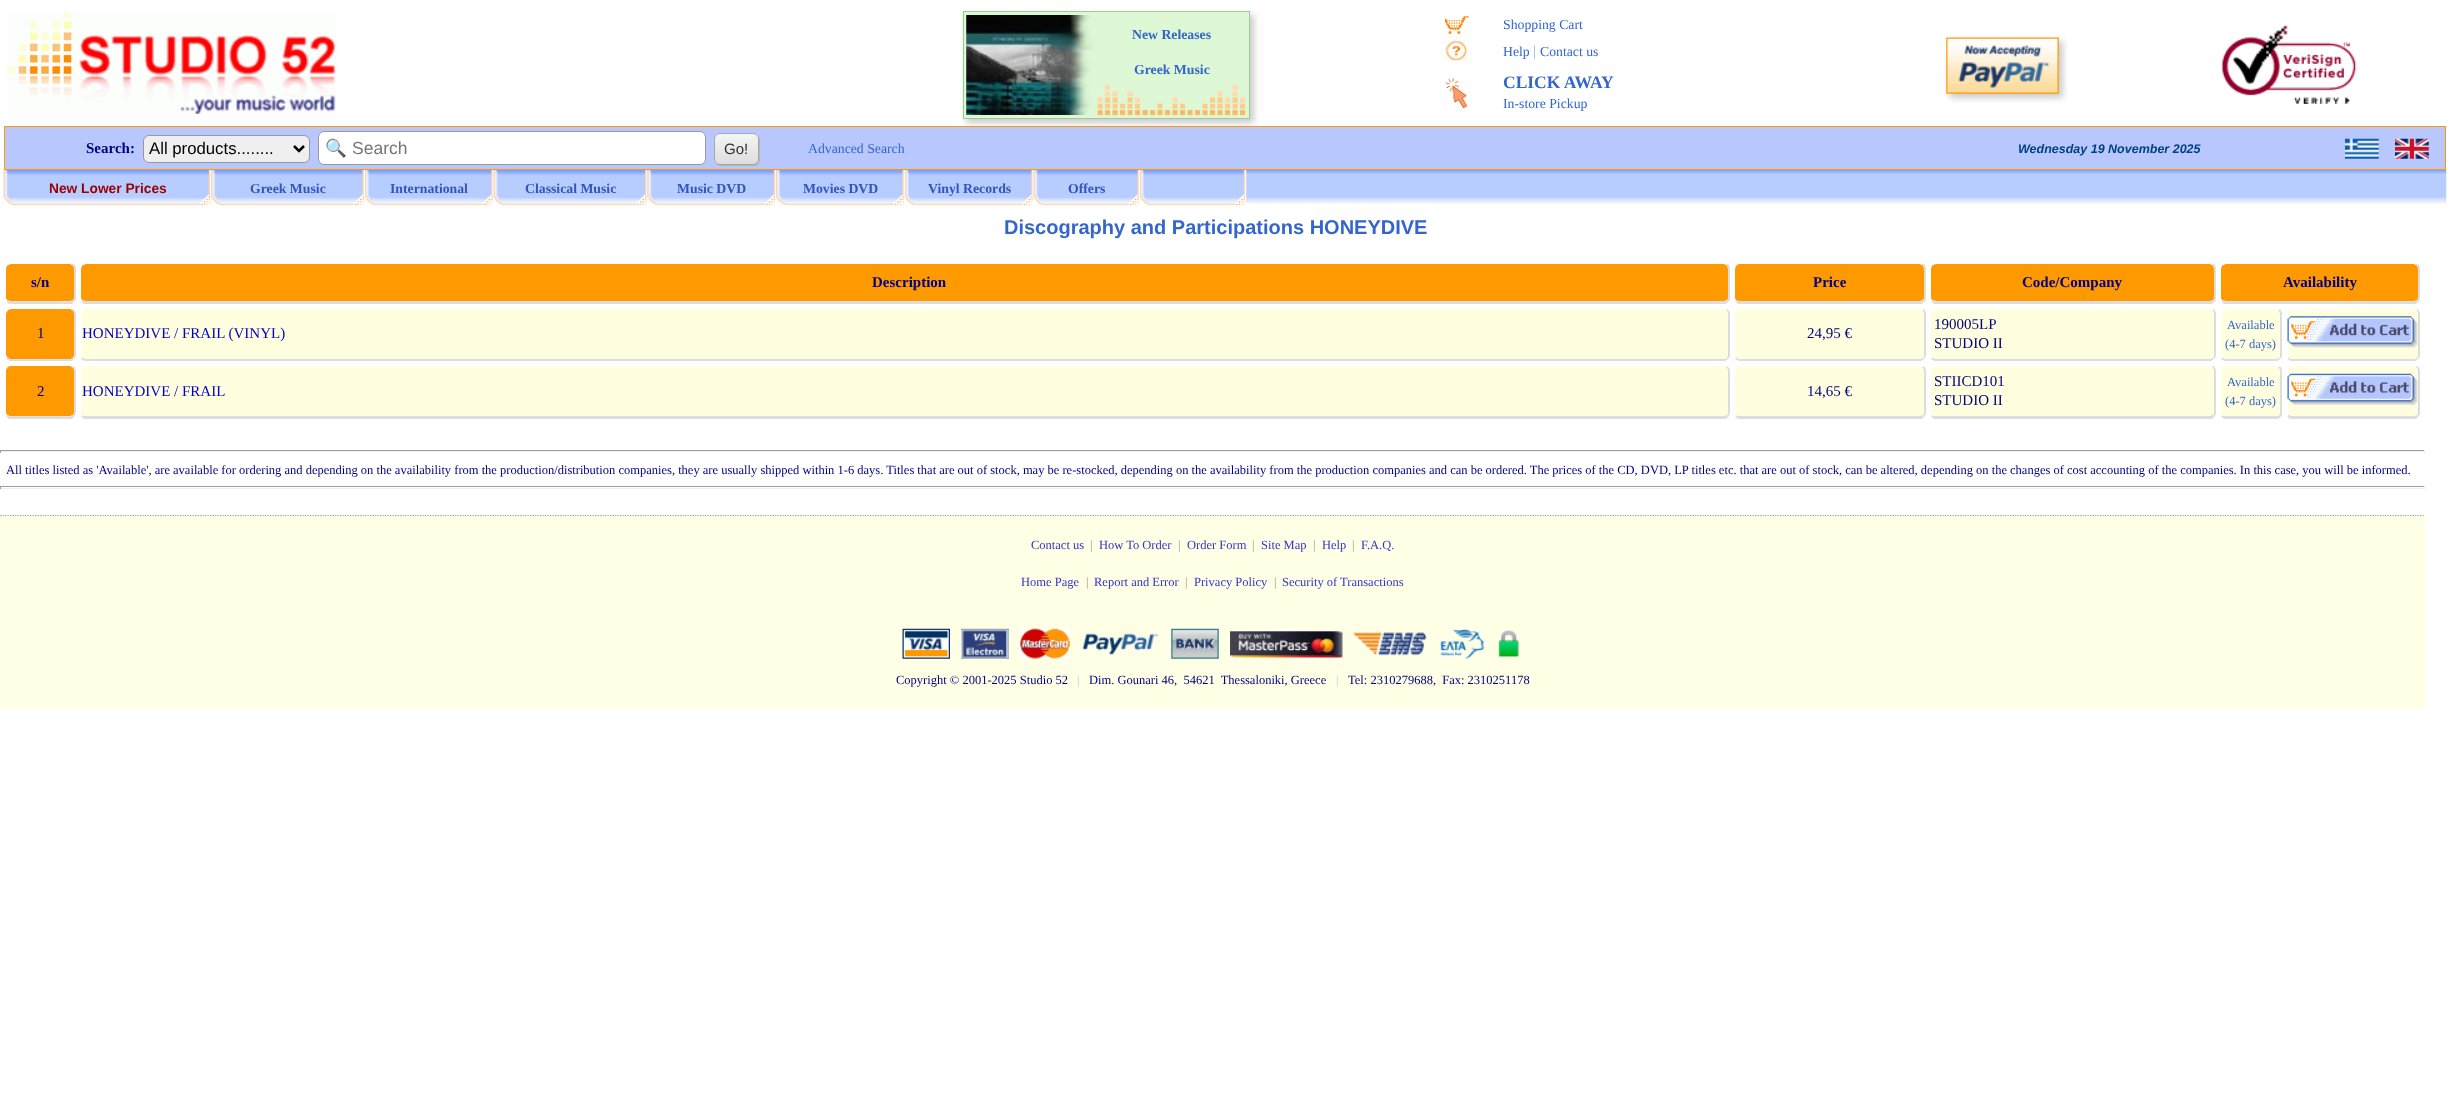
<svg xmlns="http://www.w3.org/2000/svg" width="2450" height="1114">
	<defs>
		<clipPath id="clip1"><rect x="714" y="133" width="45" height="32" rx="6" /></clipPath>
		<linearGradient id="g1" gradientUnits="userSpaceOnUse" x1="736" y1="134" x2="736" y2="164"><stop offset="0" stop-color="#F4F5F5" /><stop offset="1" stop-color="#DFDDDD" /></linearGradient>
	</defs>
	<rect width="100%" height="100%" fill="#FFFFFF" />
	<image x="7" y="12" width="330" height="102" href="assets/img1.png" />
	<rect x="966" y="15" width="288" height="108" fill="#CCCCCC" filter="blur(3px)" />
	<image x="962" y="11" width="287" height="108" href="assets/img2.png" />
	<rect x="963.5" y="11.5" width="286" height="107" fill="none" stroke="#99CC99" />
	<image x="966" y="15" width="132" height="100" href="assets/img3.png" />
	<g font-family="Liberation Serif" font-size="13.75" font-weight="700" fill="#3366CC">
		<text x="1132" y="39">New Releases</text>
		<text x="1134" y="74">Greek Music</text>
	</g>
	<image x="1445" y="16" width="24" height="18" href="assets/img4.png" />
	<text x="1503" y="29" font-family="Liberation Serif" font-size="13.75" fill="#3366CC">Shopping Cart</text>
	<image x="1446" y="41" width="21" height="20" href="assets/img5.png" />
	<text x="1503" y="56" font-family="Liberation Serif" font-size="13.75" fill="#3366CC">Help</text>
	<text x="1533" y="56" font-family="Liberation Serif" font-size="15" fill="#99B2E6">|</text>
	<text x="1540" y="56" font-family="Liberation Serif" font-size="13.75" fill="#3366CC">Contact us</text>
	<image x="1445" y="77" width="23" height="32" href="assets/img6.png" />
	<text x="1503" y="88" font-family="Liberation Serif" font-size="17.5" font-weight="700" fill="#3366CC">CLICK AWAY</text>
	<text x="1503" y="108" font-family="Liberation Serif" font-size="13.75" fill="#3366CC">In-store Pickup</text>
	<rect x="1950" y="41" width="113" height="57" fill="#CCCCCC" filter="blur(3px)" />
	<image x="1946" y="37" width="113" height="57" href="assets/img7.png" />
	<image x="2221" y="25" width="136" height="79" href="assets/img8.png" />
	<rect x="4.5" y="126.5" width="2441" height="43" fill="#B8C8FF" stroke="#FF9900" />
	<text x="86" y="153" font-family="Liberation Serif" font-size="15" font-weight="700" fill="#000080">Search:</text>
	<rect x="143.5" y="135.5" width="166" height="27" rx="5.5" fill="#EFEFEF" stroke="#999999" />
	<path d="M294 146L299 151L304 146" fill="none" stroke="#000000" stroke-width="2.5" />
	<text x="149" y="154" font-family="Liberation Sans" font-size="16.75" fill="#000000">All products........</text>
	<rect x="318.5" y="131.5" width="387" height="33" rx="5.5" fill="#FFFFFF" stroke="#999999" />
	<text x="325" y="154" font-family="Noto Color Emoji" font-size="17.5" fill="#757575">🔍</text>
	<text x="352" y="154" font-family="Liberation Sans" font-size="17.5" fill="#757575">Search</text>
	<rect x="715" y="134" width="45" height="32" rx="6" fill="#B4B5B5" filter="blur(0.5px)" />
	<g clip-path="url(#clip1)">
		<rect x="714" y="134" width="45" height="30" fill="url(#g1)" />
	</g>
	<rect x="714.5" y="133.5" width="44" height="31" rx="5.5" fill="none" stroke="#A2A9A9" />
	<text x="724" y="154" font-family="Liberation Sans" font-size="15" fill="#303030">Go!</text>
	<text x="808" y="153" font-family="Liberation Serif" font-size="13.75" fill="#3366CC">Advanced Search</text>
	<text x="2018" y="153" font-family="Liberation Sans" font-size="12.5" font-weight="700" font-style="italic" fill="#004080">Wednesday 19 November 2025</text>
	<image x="2345" y="138" width="34" height="21" href="assets/img9.png" />
	<image x="2395" y="138" width="34" height="21" href="assets/img10.png" />
	<image x="3" y="170" width="2444" height="34" href="assets/img11.png" />
	<image x="3" y="170" width="209" height="35" href="assets/img12.png" />
	<text x="49" y="193" font-family="Liberation Sans" font-size="13.75" font-weight="700" fill="#990000">New Lower Prices</text>
	<image x="211" y="170" width="154" height="35" href="assets/img13.png" />
	<text x="250" y="193" font-family="Liberation Serif" font-size="13.75" font-weight="700" fill="#3355BB">Greek Music</text>
	<image x="365" y="170" width="129" height="35" href="assets/img14.png" />
	<text x="390" y="193" font-family="Liberation Serif" font-size="13.75" font-weight="700" fill="#3355BB">International</text>
	<image x="493" y="170" width="155" height="35" href="assets/img15.png" />
	<text x="525" y="193" font-family="Liberation Serif" font-size="13.75" font-weight="700" fill="#3355BB">Classical Music</text>
	<image x="647" y="170" width="130" height="35" href="assets/img16.png" />
	<text x="677" y="193" font-family="Liberation Serif" font-size="13.75" font-weight="700" fill="#3355BB">Music DVD</text>
	<image x="776" y="170" width="129" height="35" href="assets/img17.png" />
	<text x="803" y="193" font-family="Liberation Serif" font-size="13.75" font-weight="700" fill="#3355BB">Movies DVD</text>
	<image x="905" y="170" width="129" height="35" href="assets/img14.png" />
	<text x="928" y="193" font-family="Liberation Serif" font-size="13.75" font-weight="700" fill="#3355BB">Vinyl Records</text>
	<image x="1033" y="170" width="107" height="35" href="assets/img18.png" />
	<text x="1068" y="193" font-family="Liberation Serif" font-size="13.75" font-weight="700" fill="#3355BB">Offers</text>
	<image x="1140" y="170" width="107" height="35" href="assets/img19.png" />
	<text x="1004" y="234" font-family="Liberation Sans" font-size="20" font-weight="700" fill="#3366CC">Discography and Participations HONEYDIVE</text>
	<path d="M11 264H70C72 264 74 266 74 269V298C74 300 72 301 70 301H11C8 301 6 300 6 298V269C6 266 8 264 11 264Z" fill="#FF9900" />
	<path d="M11 264L8 265L7 264L9 262H72L74 264L72 265L70 264Z" fill="#FFFFFF" />
	<path d="M74 263.5C75 265 76 267 76 269V298C76 299.5 75.5 301 74.5 302L73 300C73.5 300 74 299 74 298V269C74 267 73 265.5 72 264.5Z" fill="#DDDDDD" />
	<path d="M9 304L6 301L7 300L10 301H60C60 301 70 302 73 300L74 302L72 304Z" fill="#DDDDDD" />
	<path d="M5 269V298C5 299 5.5 300.5 6 301.5L7 300C6.5 299.5 6 299 6 298V269C6 267.5 6.5 266 7.5 265L6.5 264C5.5 265.5 5 267 5 269Z" fill="#FFFFFF" />
	<text x="31" y="287" font-family="Liberation Serif" font-size="15" font-weight="700" fill="#000080">s/n</text>
	<path d="M86 264H1724C1726 264 1728 266 1728 269V298C1728 300 1726 301 1724 301H86C83 301 81 300 81 298V269C81 266 83 264 86 264Z" fill="#FF9900" />
	<path d="M86 264L83 265L82 264L84 262H1726L1728 264L1726 265L1724 264Z" fill="#FFFFFF" />
	<path d="M1730 298V269C1730 267 1729 265 1728 263.5L1726 264.5C1727 265.5 1728 267 1728 269V298C1728 299 1727.5 300 1726.5 300.5L1728 302C1729.5 301 1730 299.5 1730 298Z" fill="#DDDDDD" />
	<path d="M84 304L81 301L82 300L86 301H1724L1727 300L1728 302L1726 304Z" fill="#DDDDDD" />
	<path d="M80 269V298C80 299 80.5 300.5 81 301.5L82 300C81.5 299.5 81 299 81 298V269C81 267.5 81.5 266 82.5 265L81.5 264C80.5 265.5 80 267 80 269Z" fill="#FFFFFF" />
	<text x="872" y="287" font-family="Liberation Serif" font-size="15" font-weight="700" fill="#000080">Description</text>
	<path d="M1740 264H1920C1922 264 1924 266 1924 269V298C1924 300 1922 301 1920 301H1740C1737 301 1735 300 1735 298V269C1735 266 1737 264 1740 264Z" fill="#FF9900" />
	<path d="M1740 264C1739 264 1737 264 1737 265L1736 264C1743 256 1757 262 1769 262H1922L1924 264L1922 265L1920 264Z" fill="#FFFFFF" />
	<path d="M1924 263.5C1925 265 1926 267 1926 269V298C1926 299.5 1925.5 301 1924.5 302L1923 300C1923.5 300 1924 299 1924 298V269C1924 267 1923 265.5 1922 264.5Z" fill="#DDDDDD" />
	<path d="M1738 304L1735 301L1736 300C1737 301 1738 301 1740 301H1920L1923 300L1924 302L1922 304Z" fill="#DDDDDD" />
	<path d="M1735 301C1734.5 300 1734 299 1734 298V269C1734 267 1734.5 265.5 1735.5 264.5L1736.5 265.5C1735.5 266 1735 267.5 1735 269V298C1735 298.5 1735.5 299.5 1735.5 300Z" fill="#FFFFFF" />
	<text x="1813" y="287" font-family="Liberation Serif" font-size="15" font-weight="700" fill="#000080">Price</text>
	<path d="M1936 264H2210C2212 264 2214 266 2214 269V298C2214 300 2212 301 2210 301H1936C1933 301 1931 300 1931 298V269C1931 266 1933 264 1936 264Z" fill="#FF9900" />
	<path d="M1936 264L1933 265L1932 264C1942 252 1964 262 1980 262L2213 263L2214 264L2212 265L2210 264Z" fill="#FFFFFF" />
	<path d="M2214 263.5C2215 265 2216 267 2216 269V298C2216 299.5 2215.5 301 2214.5 302L2213 300C2213.5 300 2214 299 2214 298V269C2214 267 2213 265.5 2212 264.5Z" fill="#DDDDDD" />
	<path d="M1934 304L1931 301L1932 300L1936 301H2210L2213 300L2214 302L2212 304Z" fill="#DDDDDD" />
	<path d="M1930 269V298C1930 299 1930.5 300.5 1931 301.5L1932 300C1931.5 299.5 1931 299 1931 298V269C1931 267.5 1931.5 266 1932.5 265L1931.5 264C1930.5 265.5 1930 267 1930 269Z" fill="#FFFFFF" />
	<text x="2022" y="287" font-family="Liberation Serif" font-size="15" font-weight="700" fill="#000080">Code/Company</text>
	<path d="M2226 264H2414C2416 264 2418 266 2418 269V298C2418 300 2416 301 2414 301H2226C2223 301 2221 300 2221 298V269C2221 266 2223 264 2226 264Z" fill="#FF9900" />
	<path d="M2226 264L2223 265L2222 264C2229 255 2244 262 2256 262H2416L2418 264L2416 265L2414 264Z" fill="#FFFFFF" />
	<path d="M2420 298V269C2420 267 2419 265 2418 263.5L2416 264.5C2417 265.5 2418 267 2418 269V298C2418 299 2417.5 300 2416.5 300.5L2418 302C2419.5 301 2420 299.5 2420 298Z" fill="#DDDDDD" />
	<path d="M2224 304L2221 301L2222 300L2226 301H2414L2417 300L2418 302L2416 304Z" fill="#DDDDDD" />
	<path d="M2220 269V298C2220 299 2220.5 300.5 2221 301.5L2222 300C2221.5 299.5 2221 299 2221 298V269C2221 267.5 2221.5 266 2222.5 265L2221.5 264C2220.5 265.5 2220 267 2220 269Z" fill="#FFFFFF" />
	<text x="2283" y="287" font-family="Liberation Serif" font-size="15" font-weight="700" fill="#000080">Availability</text>
	<path d="M11 309H70C72 309 74 311 74 314V355C74 357 72 359 70 359H11C8 359 6 357 6 355V314C6 311 8 309 11 309Z" fill="#FF9900" />
	<path d="M11 308C10 308 8 308 7 309L8 310L11 309H60C64 309 69 307 72 310L73 309L70 308Z" fill="#FFFFFF" />
	<path d="M73 309C75 310 76 312 76 314V355C76 356 75 358 74 359L73 358C74 357 74 356 74 355V314C74 312 73 310 72 310Z" fill="#DDDDDD" />
	<path d="M74 359C73 360 72 361 70 361H11C9 361 8 360 6 359L7 357L10 359H70L73 358Z" fill="#DDDDDD" />
	<path d="M5 314V355C5 356 6 358 6 359L7 357L6 355V313L8 310L7 309C6 310 5 312 5 314Z" fill="#FFFFFF" />
	<text x="37" y="338" font-family="Liberation Serif" font-size="15" fill="#000080">1</text>
	<path d="M86 309H1724C1726 309 1728 311 1728 314V355C1728 357 1726 359 1724 359H86C83 359 81 357 81 355V314C81 311 83 309 86 309Z" fill="#FFFFDF" />
	<path d="M86 308C85 308 83 308 82 309L83 310L86 309H1724L1726 310L1727 309L1724 308Z" fill="#FFFFFF" />
	<path d="M1727 309C1729 310 1730 312 1730 314V355C1730 357 1729 358 1728 359L1727 358C1727 357 1728 356 1728 355V314C1728 312 1727 310 1726 310Z" fill="#DDDDDD" />
	<path d="M1728 359C1727 360 1725 361 1724 361H86C84 361 83 360 81 359L82 357C83 358 84 359 86 359H1724C1725 359 1726 359 1727 358Z" fill="#DDDDDD" />
	<path d="M80 314V355C80 356 81 358 81 359L82 357L81 355V313L83 310L82 309C81 310 80 312 80 314Z" fill="#FFFFFF" />
	<text x="82" y="338" font-family="Liberation Serif" font-size="15" fill="#0000CC">HONEYDIVE / FRAIL (VINYL)</text>
	<path d="M1740 309H1920C1922 309 1924 311 1924 314V355C1924 357 1922 359 1920 359H1740C1737 359 1735 357 1735 355V314C1735 311 1737 309 1740 309Z" fill="#FFFFDF" />
	<path d="M1740 308C1738 308 1737 309 1736 310H1737C1737 309 1739 309 1740 309H1920L1922 310L1923 309L1920 308Z" fill="#FFFFFF" />
	<path d="M1923 309C1925 310 1926 312 1926 314V355C1926 356 1925 358 1924 359L1923 358C1924 357 1924 356 1924 355V314C1924 312 1923 310 1922 310Z" fill="#DDDDDD" />
	<path d="M1924 359L1921 361H1740C1738 361 1736 360 1735 358L1736 357C1737 358 1738 359 1740 359H1920L1923 358Z" fill="#DDDDDD" />
	<path d="M1736 310C1735 311 1734 312 1734 314V355C1734 356 1734 357 1735 358L1736 357L1735 355V313L1737 310Z" fill="#FFFFFF" />
	<text x="1807" y="338" font-family="Liberation Serif" font-size="15" fill="#000080">24,95 €</text>
	<path d="M1936 309H2210C2212 309 2214 311 2214 314V355C2214 357 2212 359 2210 359H1936C1933 359 1931 357 1931 355V314C1931 311 1933 309 1936 309Z" fill="#FFFFDF" />
	<path d="M1936 308C1935 308 1933 308 1932 309L1933 310L1936 309H2210L2212 310L2213 309L2210 308Z" fill="#FFFFFF" />
	<path d="M2213 309C2215 310 2216 312 2216 314V355C2216 356 2215 358 2214 359L2213 358C2214 357 2214 356 2214 355V314C2214 312 2213 310 2212 310Z" fill="#DDDDDD" />
	<path d="M2214 359L2211 361H1936C1934 361 1932 360 1931 359L1932 357C1933 358 1934 359 1936 359H2210C2211 359 2212 358 2213 358Z" fill="#DDDDDD" />
	<path d="M1930 314V355C1930 356 1931 358 1931 359L1932 357L1931 355V313L1933 310L1932 309C1931 310 1930 312 1930 314Z" fill="#FFFFFF" />
	<g font-family="Liberation Serif" font-size="15" fill="#000080">
		<text x="1934" y="329">190005LP</text>
		<text x="1934" y="348">STUDIO II</text>
	</g>
	<path d="M2226 309H2276C2278 309 2280 311 2280 314V355C2280 357 2278 359 2276 359H2226C2223 359 2221 357 2221 355V314C2221 311 2223 309 2226 309Z" fill="#FFFFDF" />
	<path d="M2226 308C2225 308 2223 308 2222 309L2223 310L2225 309H2276L2278 310L2280 309L2276 308Z" fill="#FFFFFF" />
	<path d="M2280 309C2281 310 2282 312 2282 314V355C2282 357 2281 358 2280 359L2279 358C2280 357 2280 356 2280 355V314C2280 312 2279 311 2278 310Z" fill="#DDDDDD" />
	<path d="M2280 359C2279 360 2278 361 2276 361H2226C2224 361 2223 360 2221 359L2222 357C2223 358 2224 359 2226 359H2276C2277 359 2278 358 2279 358Z" fill="#DDDDDD" />
	<path d="M2220 314V355C2220 356 2221 358 2221 359L2222 357L2221 355V313L2223 310L2222 309C2221 310 2220 312 2220 314Z" fill="#FFFFFF" />
	<g font-family="Liberation Serif" font-size="12.5" fill="#3366CC">
		<text x="2227" y="329">Available</text>
		<text x="2225" y="348">(4-7 days)</text>
	</g>
	<path d="M2292 309H2414C2416 309 2418 311 2418 314V355C2418 357 2416 359 2414 359H2292C2290 359 2288 357 2288 355V314C2288 311 2290 309 2292 309Z" fill="#FFFFDF" />
	<path d="M2292 308C2291 308 2289 308 2288 309L2289 310C2290 310 2291 309 2292 309H2414L2416 310L2417 309L2414 308Z" fill="#FFFFFF" />
	<path d="M2417 309C2419 310 2420 312 2420 314V355C2420 357 2419 358 2418 359L2417 358C2417 357 2418 356 2418 355V314C2418 312 2417 310 2416 310Z" fill="#DDDDDD" />
	<path d="M2418 359C2417 360 2415 361 2414 361H2292C2290 361 2289 360 2288 359V357C2289 358 2290 359 2291 359H2414L2417 358Z" fill="#DDDDDD" />
	<path d="M2286 312L2288 309L2289 310L2288 313C2288 316 2287 355 2288 357V359L2286 357Z" fill="#FFFFFF" />
	<image x="2287" y="316" width="131" height="32" href="assets/img20.png" />
	<path d="M11 366H70C72 366 74 368 74 371V412C74 415 72 416 70 416H11C8 416 6 415 6 412V371C6 368 8 366 11 366Z" fill="#FF9900" />
	<path d="M11 365C10 365 8 366 7 367L10 366H70L72 367L74 366L70 365Z" fill="#FFFFFF" />
	<path d="M74 366C75 368 76 369 76 371V412C76 414 75 416 74 417L73 415C73 415 74 414 74 412V371C74 369 73 368 72 367Z" fill="#DDDDDD" />
	<path d="M9 419L6 416L7 415L10 416H60C61 416 70 417 73 415L74 417L72 419Z" fill="#DDDDDD" />
	<path d="M5 371V412C5 414 5 415 6 416L7 415C6 414 6 413 6 412V371C6 370 6 368 7 367C6 368 5 370 5 371Z" fill="#FFFFFF" />
	<text x="37" y="396" font-family="Liberation Serif" font-size="15" fill="#000080">2</text>
	<path d="M86 366H1724C1726 366 1728 368 1728 371V412C1728 415 1726 416 1724 416H86C83 416 81 415 81 412V371C81 368 83 366 86 366Z" fill="#FFFFDF" />
	<path d="M86 365C84 365 83 366 82 367C83 366 84 366 86 366H1724L1726 367L1727 366L1724 365Z" fill="#FFFFFF" />
	<path d="M1730 412V371C1730 369 1729 367 1727 366L1726 367C1727 368 1728 369 1728 371V412C1728 414 1727 415 1727 415L1728 417C1729 416 1730 414 1730 412Z" fill="#DDDDDD" />
	<path d="M84 419L81 416L82 415C83 416 84 416 86 416H1724L1727 415L1728 417L1726 419Z" fill="#DDDDDD" />
	<path d="M80 371V412C80 414 80 415 81 416L82 415C81 414 81 413 81 412V371C81 370 82 368 82 367C81 368 80 370 80 371Z" fill="#FFFFFF" />
	<text x="82" y="396" font-family="Liberation Serif" font-size="15" fill="#0000CC">HONEYDIVE / FRAIL</text>
	<path d="M1740 366H1920C1922 366 1924 368 1924 371V412C1924 415 1922 416 1920 416H1740C1737 416 1735 415 1735 412V371C1735 368 1737 366 1740 366Z" fill="#FFFFDF" />
	<path d="M1740 365C1738 365 1737 366 1736 367V368C1737 366 1739 366 1740 366H1920L1922 367L1924 366L1920 365Z" fill="#FFFFFF" />
	<path d="M1924 366C1925 368 1926 369 1926 371V412C1926 414 1925 416 1924 417L1923 415C1923 415 1924 414 1924 412V371C1924 369 1923 368 1922 367Z" fill="#DDDDDD" />
	<path d="M1738 419C1737 418 1736 417 1735 416L1736 415C1737 416 1738 416 1740 416H1920L1923 415L1924 417L1922 419Z" fill="#DDDDDD" />
	<path d="M1736 367L1734 370V405C1734 408 1733 413 1735 416L1736 415C1734 413 1734 374 1735 370L1736 368Z" fill="#FFFFFF" />
	<text x="1807" y="396" font-family="Liberation Serif" font-size="15" fill="#000080">14,65 €</text>
	<path d="M1936 366H2210C2212 366 2214 368 2214 371V412C2214 415 2212 416 2210 416H1936C1933 416 1931 415 1931 412V371C1931 368 1933 366 1936 366Z" fill="#FFFFDF" />
	<path d="M1936 365C1934 365 1933 366 1932 367C1933 366 1934 366 1936 366H2210L2212 367L2214 366L2210 365Z" fill="#FFFFFF" />
	<path d="M2214 366C2215 368 2216 369 2216 371V412C2216 414 2215 416 2214 417L2213 415C2213 415 2214 414 2214 412V371C2214 369 2213 368 2212 367Z" fill="#DDDDDD" />
	<path d="M1934 419L1931 416L1932 415C1933 416 1935 416 1936 416H2210L2213 415L2214 417L2212 419Z" fill="#DDDDDD" />
	<path d="M1930 371V412C1930 414 1930 415 1931 416L1932 415C1931 414 1931 413 1931 412V371C1931 370 1932 368 1932 367C1931 368 1930 370 1930 371Z" fill="#FFFFFF" />
	<g font-family="Liberation Serif" font-size="15" fill="#000080">
		<text x="1934" y="386">STIICD101</text>
		<text x="1934" y="405">STUDIO II</text>
	</g>
	<path d="M2226 366H2276C2278 366 2280 368 2280 371V412C2280 415 2278 416 2276 416H2226C2223 416 2221 415 2221 412V371C2221 368 2223 366 2226 366Z" fill="#FFFFDF" />
	<path d="M2226 365C2224 365 2223 366 2222 367C2223 366 2224 366 2226 366H2276L2278 367L2280 366C2279 366 2278 365 2276 365Z" fill="#FFFFFF" />
	<path d="M2280 366C2281 367 2282 369 2282 371V412C2282 414 2282 416 2281 417L2279 415C2280 414 2280 413 2280 412V371C2280 369 2279 368 2278 367Z" fill="#DDDDDD" />
	<path d="M2224 419L2221 416L2222 415C2223 416 2224 416 2226 416H2276C2277 416 2278 416 2279 415L2281 417L2278 419Z" fill="#DDDDDD" />
	<path d="M2220 371V412C2220 414 2220 415 2221 416L2222 415C2221 414 2221 413 2221 412V371C2221 370 2222 368 2222 367C2221 368 2220 370 2220 371Z" fill="#FFFFFF" />
	<g font-family="Liberation Serif" font-size="12.5" fill="#3366CC">
		<text x="2227" y="386">Available</text>
		<text x="2225" y="405">(4-7 days)</text>
	</g>
	<path d="M2292 366H2414C2416 366 2418 368 2418 371V412C2418 415 2416 416 2414 416H2292C2290 416 2288 415 2288 412V371C2288 368 2290 366 2292 366Z" fill="#FFFFDF" />
	<path d="M2292 365C2291 365 2289 366 2288 367L2289 368C2290 367 2291 366 2292 366H2414L2416 367L2417 366L2414 365Z" fill="#FFFFFF" />
	<path d="M2420 412V371C2420 369 2419 367 2417 366L2416 367C2417 368 2418 369 2418 371V412C2418 414 2417 415 2417 415L2418 417C2419 416 2420 414 2420 412Z" fill="#DDDDDD" />
	<path d="M2290 419L2287 416L2289 414C2289 416 2291 416 2292 416H2414L2417 415L2418 417L2416 419Z" fill="#DDDDDD" />
	<path d="M2286 369L2288 367L2289 368L2288 370V405C2288 406 2287 412 2289 414L2287 416L2286 414Z" fill="#FFFFFF" />
	<image x="2287" y="373" width="131" height="32" href="assets/img21.png" />
	<rect x="0" y="450" width="2425" height="1" fill="#9F9F9F" />
	<rect x="2424" y="450" width="1" height="3" fill="#EEEEEE" />
	<rect x="0" y="451" width="2425" height="1" fill="#EEEEEE" />
	<rect x="0" y="450" width="1" height="3" fill="#9F9F9F" />
	<text x="6" y="474" font-family="Liberation Serif" font-size="12.5" fill="#000080">All titles listed as 'Available', are available for ordering and depending on the availability from the production/distribution companies, they are usually shipped within 1-6 days. Titles that are out of stock, may be re-stocked, depending on the availability from the production companies and can be ordered. The prices of the CD, DVD, LP titles etc. that are out of stock, can be altered, depending on the changes of cost accounting of the companies. In this case, you will be informed.</text>
	<rect x="0" y="486" width="2425" height="1" fill="#9F9F9F" />
	<rect x="2424" y="486" width="1" height="3" fill="#EEEEEE" />
	<rect x="0" y="488" width="2425" height="1" fill="#EEEEEE" />
	<rect x="0" y="486" width="1" height="3" fill="#9F9F9F" />
	<rect x="0" y="515" width="2425" height="193" fill="#FFFFE6" />
	<path d="M0 515.5H2425" fill="none" stroke="#999999" stroke-width="1.2" stroke-dasharray="1.25 1.25" />
	<text x="1031" y="549" font-family="Liberation Serif" font-size="12.5" fill="#3333CC">Contact us</text>
	<text x="1090" y="549" font-family="Liberation Serif" font-size="12.5" fill="#999999">|</text>
	<text x="1099" y="549" font-family="Liberation Serif" font-size="12.5" fill="#3333CC">How To Order</text>
	<text x="1178" y="549" font-family="Liberation Serif" font-size="12.5" fill="#999999">|</text>
	<text x="1187" y="549" font-family="Liberation Serif" font-size="12.5" fill="#3333CC">Order Form</text>
	<text x="1252" y="549" font-family="Liberation Serif" font-size="12.5" fill="#999999">|</text>
	<text x="1261" y="549" font-family="Liberation Serif" font-size="12.5" fill="#3333CC">Site Map</text>
	<text x="1313" y="549" font-family="Liberation Serif" font-size="12.5" fill="#999999">|</text>
	<text x="1322" y="549" font-family="Liberation Serif" font-size="12.5" fill="#3333CC">Help</text>
	<text x="1352" y="549" font-family="Liberation Serif" font-size="12.5" fill="#999999">|</text>
	<g font-family="Liberation Serif" font-size="12.5" fill="#3333CC">
		<text x="1361" y="549">F.A.Q.</text>
		<text x="1021" y="586">Home Page</text>
	</g>
	<text x="1086" y="586" font-family="Liberation Serif" font-size="12.5" fill="#999999">|</text>
	<text x="1094" y="586" font-family="Liberation Serif" font-size="12.5" fill="#3333CC">Report and Error</text>
	<text x="1185" y="586" font-family="Liberation Serif" font-size="12.5" fill="#999999">|</text>
	<text x="1194" y="586" font-family="Liberation Serif" font-size="12.5" fill="#3333CC">Privacy Policy</text>
	<text x="1274" y="586" font-family="Liberation Serif" font-size="12.5" fill="#999999">|</text>
	<text x="1282" y="586" font-family="Liberation Serif" font-size="12.5" fill="#3333CC">Security of Transactions</text>
	<image x="902" y="628" width="48" height="31" href="assets/img22.png" />
	<image x="961" y="628" width="48" height="31" href="assets/img23.png" />
	<image x="1020" y="628" width="50" height="31" href="assets/img24.png" />
	<image x="1082" y="633" width="77" height="23" href="assets/img25.png" />
	<image x="1171" y="628" width="48" height="31" href="assets/img26.png" />
	<image x="1230" y="630" width="113" height="29" href="assets/img27.png" />
	<image x="1352" y="632" width="75" height="24" href="assets/img28.png" />
	<image x="1440" y="628" width="44" height="31" href="assets/img29.png" />
	<image x="1498" y="630" width="22" height="28" href="assets/img30.png" />
	<text x="896" y="684" font-family="Liberation Serif" font-size="12.5" fill="#000080">Copyright © 2001-2025 Studio 52</text>
	<text x="1077" y="684" font-family="Liberation Serif" font-size="12.5" fill="#CCCCCC">|</text>
	<text x="1089" y="684" font-family="Liberation Serif" font-size="12.5" fill="#000080" xml:space="preserve">Dim. Gounari 46,  54621  Thessaloniki, Greece</text>
	<text x="1336" y="684" font-family="Liberation Serif" font-size="12.5" fill="#CCCCCC">|</text>
	<text x="1348" y="684" font-family="Liberation Serif" font-size="12.5" fill="#000080" xml:space="preserve">Tel: 2310279688,  Fax: 2310251178</text>
</svg>
